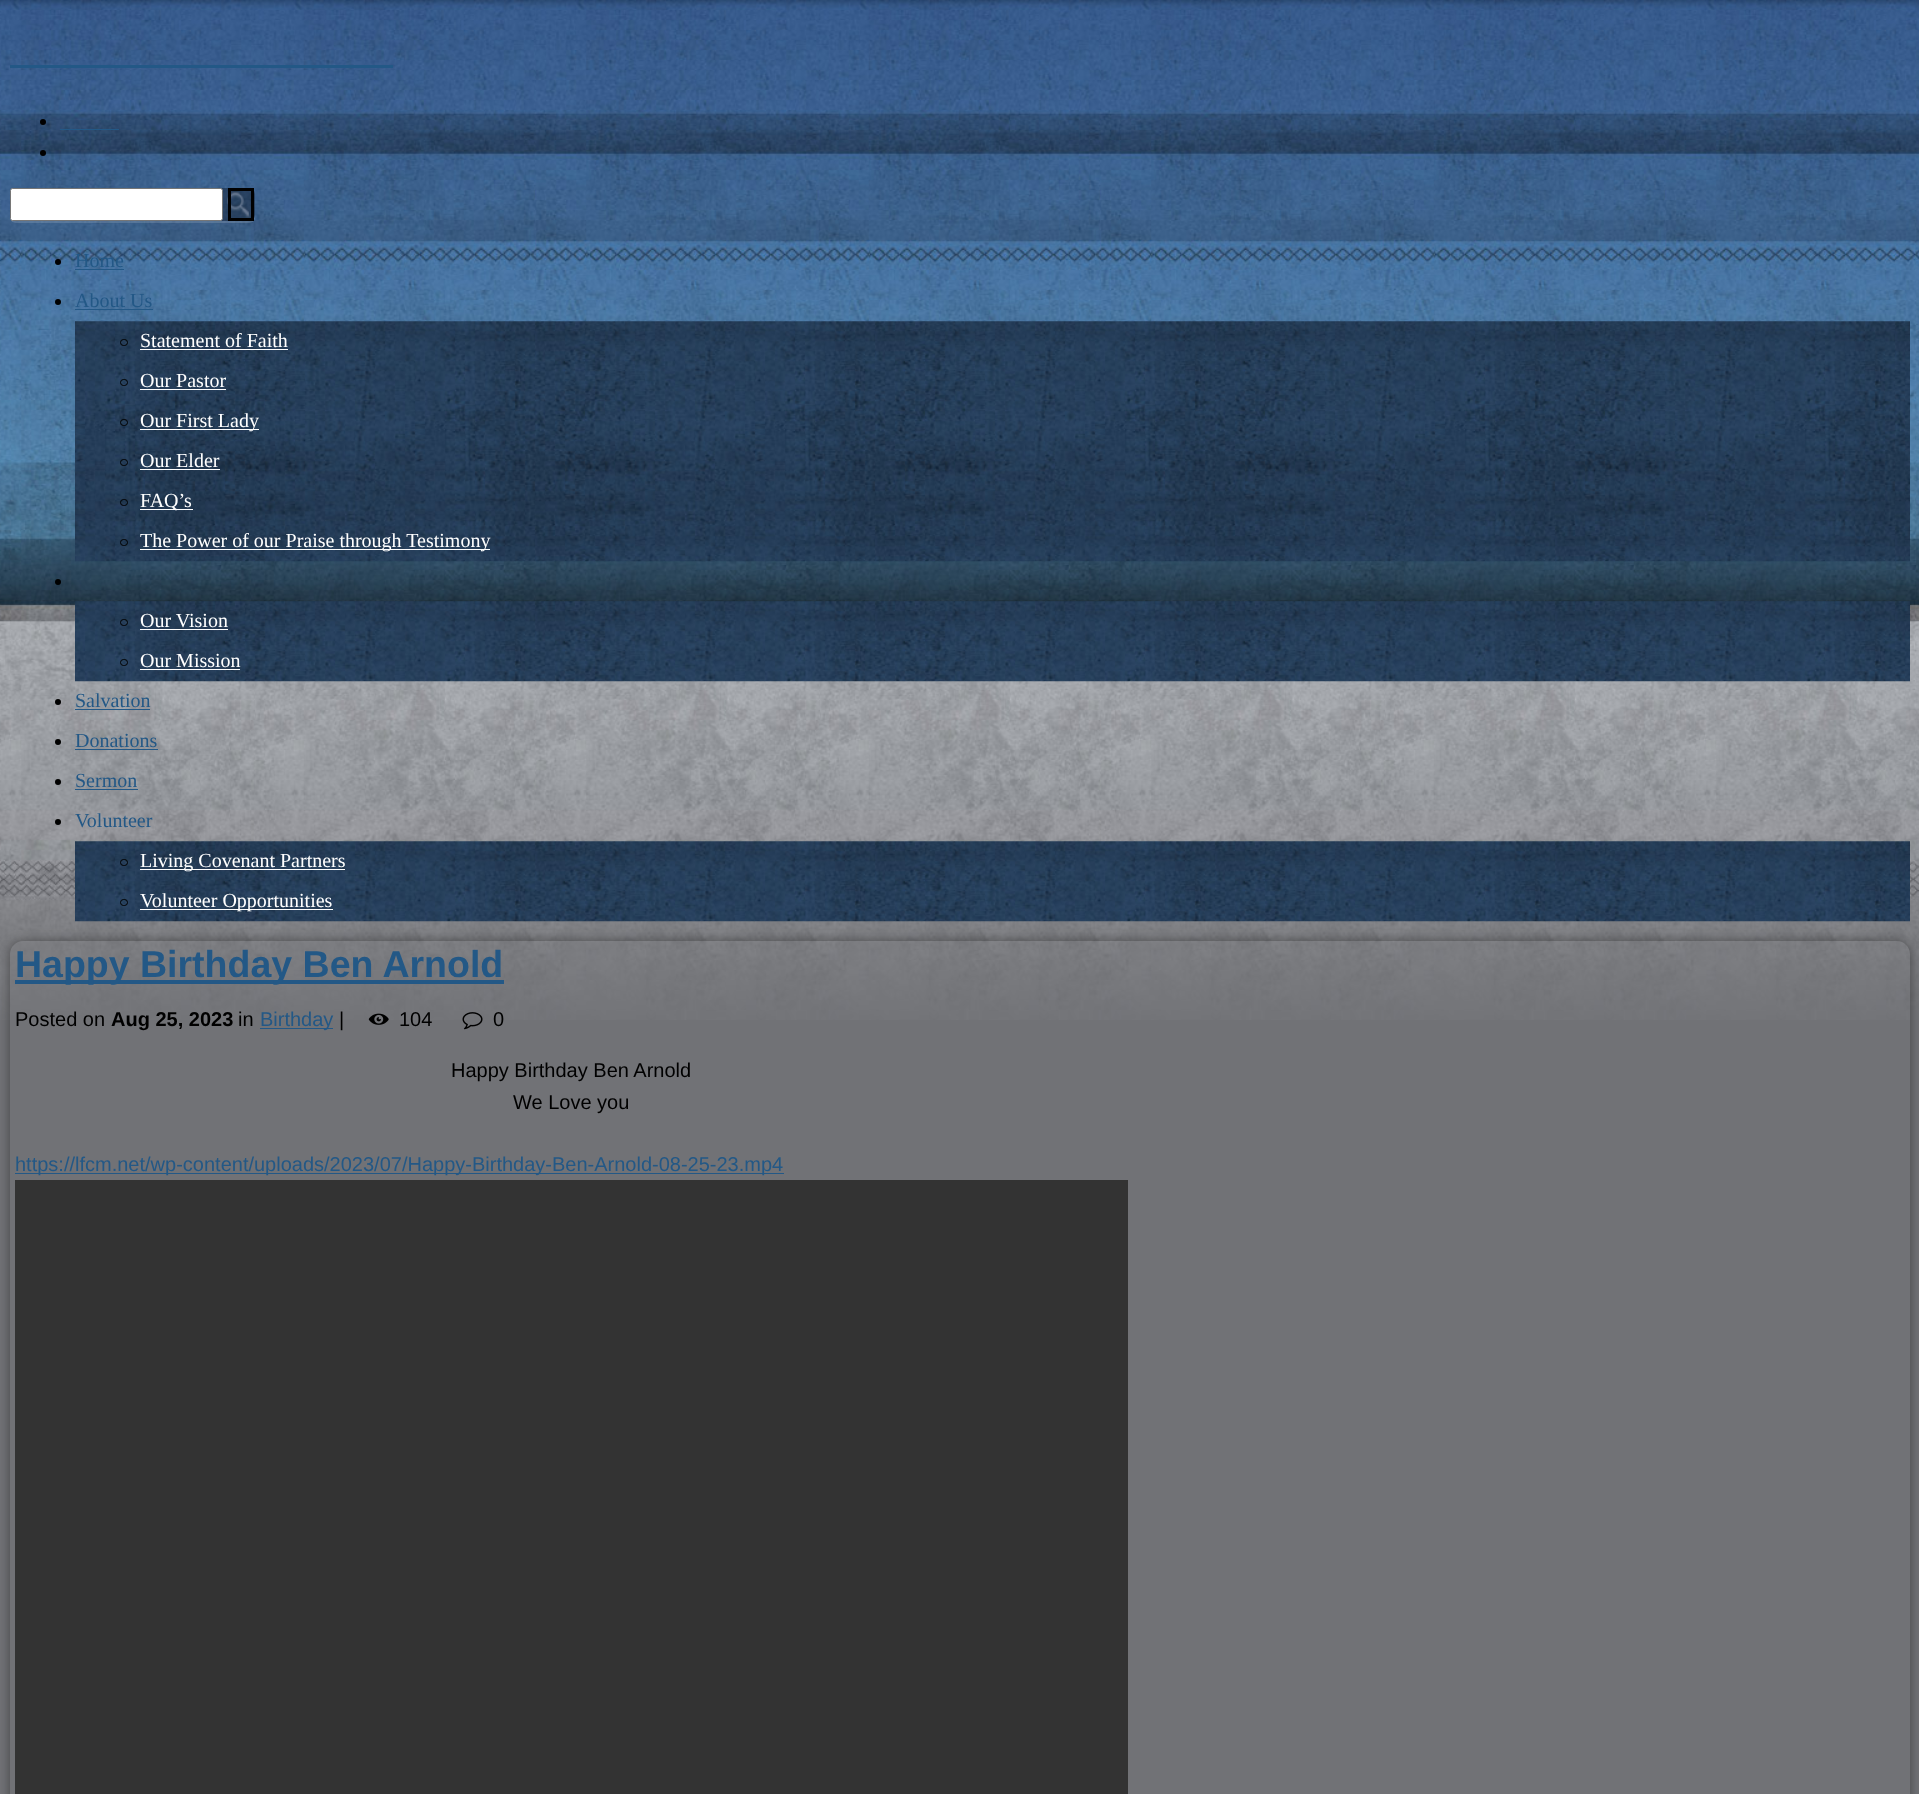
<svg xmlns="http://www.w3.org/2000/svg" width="1919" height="1794">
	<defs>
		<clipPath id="clip1"><path d="M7 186H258V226H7ZM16 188H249C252.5 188 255 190.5 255 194V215C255 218.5 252.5 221 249 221H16C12.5 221 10 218.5 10 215V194C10 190.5 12.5 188 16 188Z" clip-rule="evenodd" /></clipPath>
		<clipPath id="clip2"><path d="M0 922H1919V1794H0ZM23 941H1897C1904 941 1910 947 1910 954V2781C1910 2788 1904 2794 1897 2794H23C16 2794 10 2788 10 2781V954C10 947 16 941 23 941Z" clip-rule="evenodd" /></clipPath>
	</defs>
	<rect width="100%" height="100%" fill="#717276" />
	<image x="0" y="0" width="1919" height="1020" href="assets/img1.png" />
	<rect x="10" y="65" width="383" height="3" fill="#235886" />
	<circle cx="43" cy="122" r="3" fill="#000000" />
	<rect x="60" y="129" width="59" height="1" fill="#235886" />
	<circle cx="43" cy="153" r="3" fill="#000000" />
	<g clip-path="url(#clip1)">
		<rect x="10" y="189" width="245" height="34" rx="6" fill="#FFFFFF" fill-opacity="0.15" filter="blur(0.5px)" />
	</g>
	<rect x="10" y="188" width="245" height="33" rx="6" fill="#070A10" fill-opacity="0.35" />
	<rect x="10.5" y="188.5" width="212" height="32" rx="2" fill="#FFFFFF" stroke="#767676" />
	<image x="227" y="191" width="23" height="27" href="assets/img2.png" />
	<rect x="229.5" y="189.5" width="23" height="30" fill="none" stroke="#000000" stroke-width="3" />
	<circle cx="58" cy="262" r="3" fill="#000000" />
	<text x="75" y="267" font-family="Liberation Serif" font-size="20" fill="#235886">Home</text>
	<rect x="75" y="269" width="49" height="1" fill="#235886" />
	<circle cx="58" cy="302" r="3" fill="#000000" />
	<text x="75" y="307" font-family="Liberation Serif" font-size="20" fill="#235886">About Us</text>
	<rect x="75" y="309" width="78" height="1" fill="#235886" />
	<image x="75" y="321" width="1835" height="241" href="assets/img3.png" />
	<rect x="120.5" y="339.5" width="7" height="6" rx="3" fill="none" stroke="#000000" />
	<text x="140" y="347" font-family="Liberation Serif" font-size="20" fill="#FFFFFF">Statement of Faith</text>
	<rect x="140" y="349" width="148" height="1" fill="#FFFFFF" />
	<rect x="120.5" y="379.5" width="7" height="6" rx="3" fill="none" stroke="#000000" />
	<text x="140" y="387" font-family="Liberation Serif" font-size="20" fill="#FFFFFF">Our Pastor</text>
	<rect x="140" y="389" width="86" height="1" fill="#FFFFFF" />
	<rect x="120.5" y="419.5" width="7" height="6" rx="3" fill="none" stroke="#000000" />
	<rect x="140" y="429" width="119" height="1" fill="#FFFFFF" />
	<text x="140" y="427" font-family="Liberation Serif" font-size="20" fill="#FFFFFF">Our First Lady</text>
	<rect x="120.5" y="459.5" width="7" height="6" rx="3" fill="none" stroke="#000000" />
	<text x="140" y="467" font-family="Liberation Serif" font-size="20" fill="#FFFFFF">Our Elder</text>
	<rect x="140" y="469" width="80" height="1" fill="#FFFFFF" />
	<rect x="120.5" y="499.5" width="7" height="6" rx="3" fill="none" stroke="#000000" />
	<rect x="140" y="509" width="53" height="1" fill="#FFFFFF" />
	<text x="140" y="507" font-family="Liberation Serif" font-size="20" fill="#FFFFFF">FAQ’s</text>
	<rect x="120.5" y="539.5" width="7" height="6" rx="3" fill="none" stroke="#000000" />
	<rect x="140" y="549" width="350" height="1" fill="#FFFFFF" />
	<text x="140" y="547" font-family="Liberation Serif" font-size="20" fill="#FFFFFF">The Power of our Praise through Testimony</text>
	<circle cx="58" cy="582" r="3" fill="#000000" />
	<image x="75" y="601" width="1835" height="81" href="assets/img4.png" />
	<rect x="120.5" y="619.5" width="7" height="6" rx="3" fill="none" stroke="#000000" />
	<text x="140" y="627" font-family="Liberation Serif" font-size="20" fill="#FFFFFF">Our Vision</text>
	<rect x="140" y="629" width="88" height="1" fill="#FFFFFF" />
	<rect x="120.5" y="659.5" width="7" height="6" rx="3" fill="none" stroke="#000000" />
	<text x="140" y="667" font-family="Liberation Serif" font-size="20" fill="#FFFFFF">Our Mission</text>
	<rect x="140" y="669" width="100" height="1" fill="#FFFFFF" />
	<circle cx="58" cy="702" r="3" fill="#000000" />
	<text x="75" y="707" font-family="Liberation Serif" font-size="20" fill="#235886">Salvation</text>
	<rect x="75" y="709" width="75" height="1" fill="#235886" />
	<circle cx="58" cy="742" r="3" fill="#000000" />
	<text x="75" y="747" font-family="Liberation Serif" font-size="20" fill="#235886">Donations</text>
	<rect x="75" y="749" width="83" height="1" fill="#235886" />
	<circle cx="58" cy="782" r="3" fill="#000000" />
	<text x="75" y="787" font-family="Liberation Serif" font-size="20" fill="#235886">Sermon</text>
	<rect x="75" y="789" width="63" height="1" fill="#235886" />
	<circle cx="58" cy="822" r="3" fill="#000000" />
	<text x="75" y="827" font-family="Liberation Serif" font-size="20" fill="#235886">Volunteer</text>
	<image x="75" y="841" width="1835" height="81" href="assets/img5.png" />
	<rect x="120.5" y="859.5" width="7" height="6" rx="3" fill="none" stroke="#000000" />
	<rect x="140" y="869" width="205" height="1" fill="#FFFFFF" />
	<text x="140" y="867" font-family="Liberation Serif" font-size="20" fill="#FFFFFF">Living Covenant Partners</text>
	<rect x="120.5" y="899.5" width="7" height="6" rx="3" fill="none" stroke="#000000" />
	<rect x="140" y="909" width="193" height="1" fill="#FFFFFF" />
	<text x="140" y="907" font-family="Liberation Serif" font-size="20" fill="#FFFFFF">Volunteer Opportunities</text>
	<g clip-path="url(#clip2)">
		<rect x="10" y="941" width="1900" height="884" rx="13" fill="#1E1E1E" fill-opacity="0.55" filter="blur(6px)" />
	</g>
	<rect x="15" y="980" width="489" height="4" fill="#235886" />
	<text x="15" y="977" font-family="Liberation Sans" font-size="37.5" font-weight="700" fill="#235886">Happy Birthday Ben Arnold</text>
	<text x="15" y="1026" font-family="Liberation Sans" font-size="20" fill="#000000">Posted on</text>
	<text x="111" y="1026" font-family="Liberation Sans" font-size="20" font-weight="700" fill="#000000">Aug 25, 2023</text>
	<text x="238" y="1026" font-family="Liberation Sans" font-size="20" fill="#000000">in</text>
	<rect x="260" y="1028" width="73" height="1" fill="#235886" />
	<text x="260" y="1026" font-family="Liberation Sans" font-size="20" fill="#235886">Birthday</text>
	<text x="339" y="1026" font-family="Liberation Sans" font-size="20" fill="#000000">|</text>
	<image x="368" y="1013" width="21" height="12" href="assets/img6.png" />
	<text x="399" y="1026" font-family="Liberation Sans" font-size="20" fill="#000000">104</text>
	<image x="462" y="1012" width="21" height="18" href="assets/img7.png" />
	<g font-family="Liberation Sans" font-size="20" fill="#000000">
		<text x="493" y="1026">0</text>
		<text x="451" y="1077">Happy Birthday Ben Arnold</text>
		<text x="513" y="1109">We Love you</text>
	</g>
	<rect x="15" y="1173" width="769" height="1" fill="#235886" />
	<text x="15" y="1171" font-family="Liberation Sans" font-size="20" fill="#235886">https://lfcm.net/wp-content/uploads/2023/07/Happy-Birthday-Ben-Arnold-08-25-23.mp4</text>
	<rect x="15" y="1180" width="1113" height="614" fill="#333333" />
</svg>
